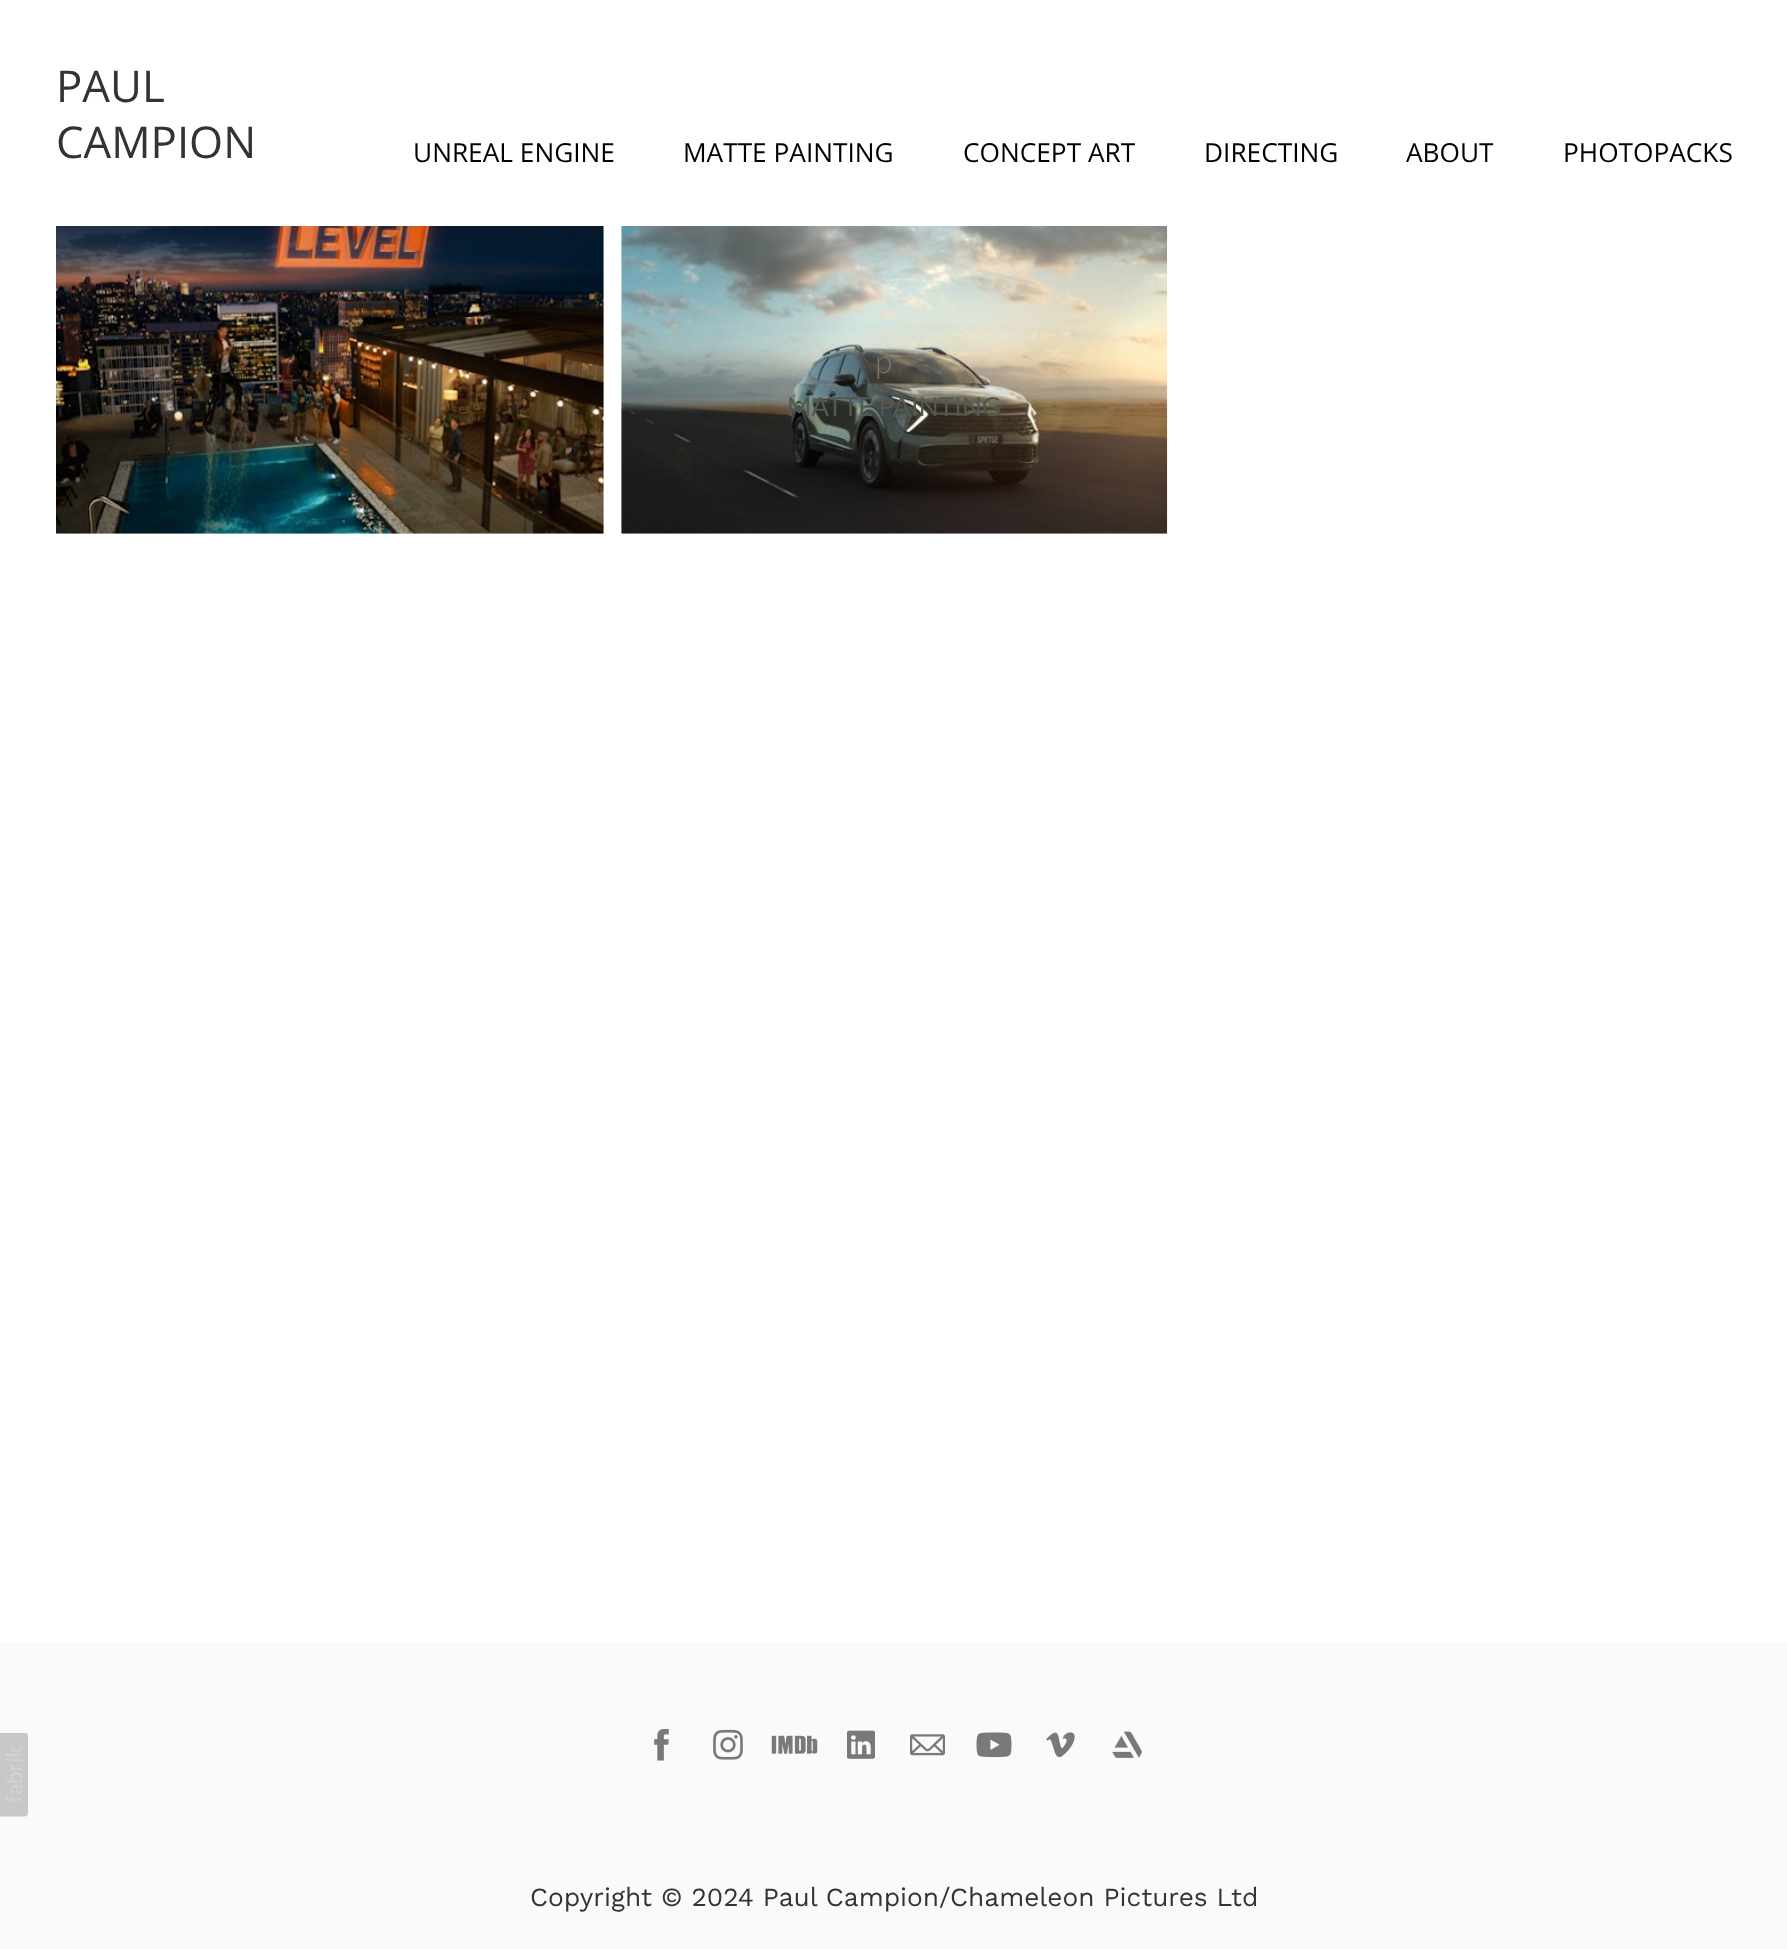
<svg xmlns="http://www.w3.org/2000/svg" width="1787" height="1949">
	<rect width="100%" height="100%" fill="#FFFFFF" />
	<rect x="0" y="1642" width="1787" height="307" fill="#FAFAFA" />
	<image x="0" y="1733" width="28" height="84" href="assets/img1.png" />
	<g font-family="Open Sans" font-size="43.75" fill="#333333">
		<text x="56" y="102">PAUL</text>
		<text x="56" y="158">CAMPION</text>
	</g>
	<g font-family="Open Sans" font-size="26.25" fill="#000000">
		<text x="413" y="162">UNREAL ENGINE</text>
		<text x="683" y="162">MATTE PAINTING</text>
		<text x="963" y="162">CONCEPT ART</text>
		<text x="1204" y="162">DIRECTING</text>
		<text x="1406" y="162">ABOUT</text>
		<text x="1563" y="162">PHOTOPACKS</text>
	</g>
	<rect x="56" y="226" width="548" height="308" fill="#FAFAFA" />
	<image x="56" y="226" width="548" height="308" href="assets/img2.png" />
	<rect x="621" y="226" width="546" height="308" fill="#FAFAFA" />
	<image x="621" y="226" width="547" height="308" href="assets/img3.png" />
	<text x="875" y="373" font-family="Lato" font-size="32" font-weight="300" fill="#76786F">p</text>
	<text x="787" y="416" font-family="Lato" font-size="26.25" fill="#545850">MATTE PAINTING</text>
	<image x="654" y="1729" width="15" height="32" href="assets/img4.png" />
	<image x="713" y="1729" width="30" height="31" href="assets/img5.png" />
	<image x="771" y="1735" width="47" height="19" href="assets/img6.png" />
	<image x="847" y="1730" width="28" height="29" href="assets/img7.png" />
	<image x="910" y="1734" width="35" height="22" href="assets/img8.png" />
	<image x="976" y="1732" width="36" height="26" href="assets/img9.png" />
	<image x="1046" y="1732" width="29" height="26" href="assets/img10.png" />
	<image x="1112" y="1731" width="30" height="27" href="assets/img11.png" />
	<text x="530" y="1906" font-family="Work Sans" font-size="26.25" fill="#333333">Copyright © 2024 Paul Campion/Chameleon Pictures Ltd</text>
</svg>
